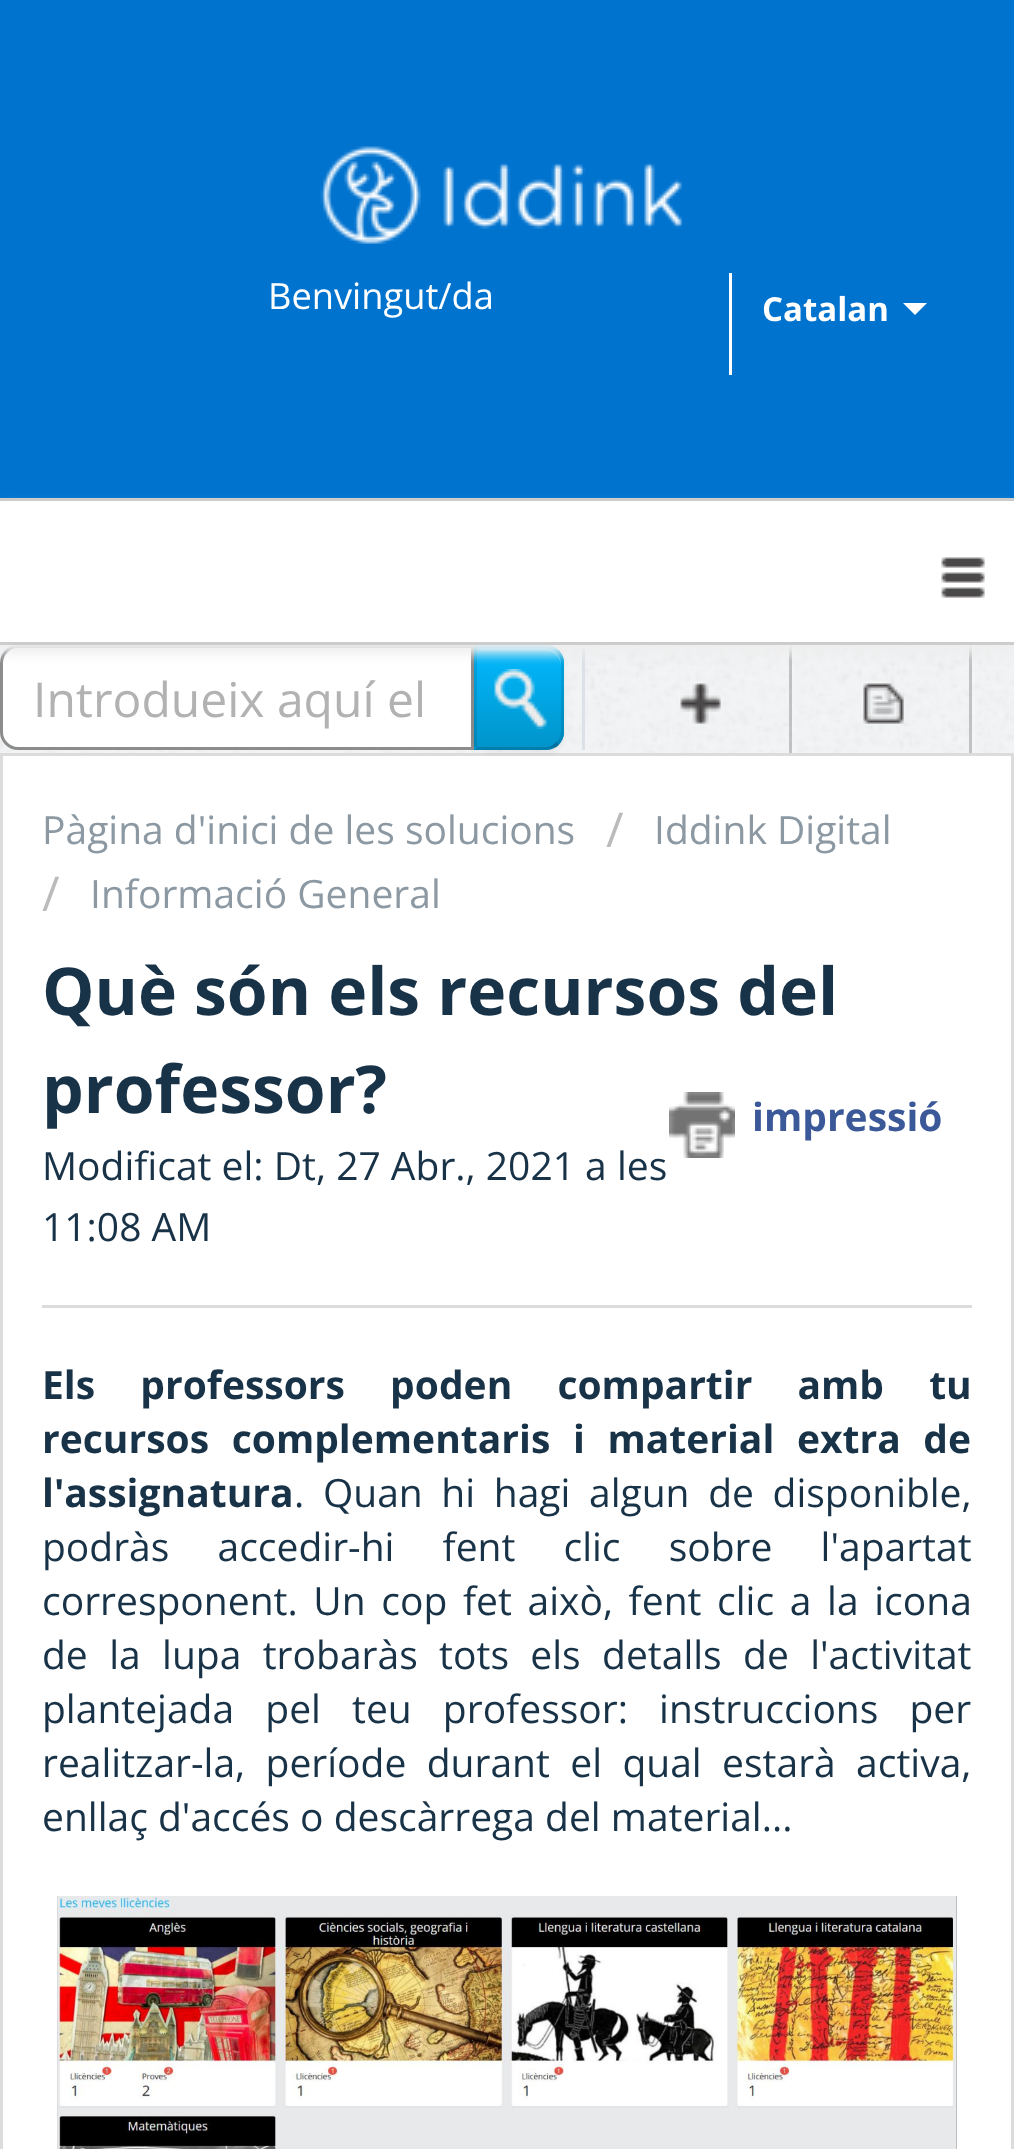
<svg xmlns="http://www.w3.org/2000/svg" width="1014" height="2149">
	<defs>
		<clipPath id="clip1"><path d="M474 645H546C556 645 564 653 564 663V732C564 742 556 750 546 750H474Z" /></clipPath>
		<linearGradient id="g1" gradientUnits="userSpaceOnUse" x1="519" y1="648" x2="519" y2="747"><stop offset="0" stop-color="#01B9FE" /><stop offset="1" stop-color="#0194CB" /></linearGradient>
	</defs>
	<rect width="100%" height="100%" fill="#F3F5F7" />
	<image x="0" y="645" width="1014" height="108" href="assets/img1.png" />
	<rect x="0" y="0" width="1014" height="498" fill="#0073CF" />
	<image x="320" y="146" width="364" height="98" href="assets/img2.png" />
	<text x="268" y="309" font-family="Open Sans" font-size="36.25" fill="#FFFFFF">Benvingut/da</text>
	<rect x="729" y="273" width="3" height="102" fill="#FFFFFF" />
	<text x="762" y="321" font-family="Open Sans" font-size="33" font-weight="700" fill="#FFFFFF">Catalan</text>
	<path d="M903 303H927L915 315Z" fill="#FFFFFF" />
	<rect x="582" y="645" width="3" height="105" fill="#DBE1E7" />
	<path d="M18 646.5H472.5V748.5H18C9 748.5 1.5 741 1.5 732V663C1.5 654 9 646.5 18 646.5Z" fill="#FFFFFF" stroke="#8C8C8C" stroke-width="3" />
	<rect x="1.5" y="754.5" width="1011" height="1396" fill="#FFFFFF" stroke="#DCDCDC" stroke-width="3" />
	<rect x="474" y="648" width="90" height="105" rx="18" fill="#000000" fill-opacity="0.05" filter="blur(3px)" />
	<path d="M474 645H546C556 645 564 653 564 663V732C564 742 556 750 546 750H474Z" fill="#01AAEA" />
	<g clip-path="url(#clip1)">
		<rect x="474" y="648" width="90" height="99" fill="url(#g1)" />
	</g>
	<path d="M477 651H546C554 651 561 658 561 666V663C561 655 554 648 546 648H477Z" fill="#FFFFFF" fill-opacity="0.2" />
	<path d="M564 732V663C564 658 562 654 559 650L556 652C559 655 561 659 561 663V732C561 736 559 740 556 742L559 745C562 742 564 737 564 732Z" fill="#000000" fill-opacity="0.1" />
	<path d="M546 750C551 750 556 748 559 745L556 742C554 745 550 747 546 747H477L474 750Z" fill="#000000" fill-opacity="0.25" />
	<path d="M477 648L474 645V750L477 747Z" fill="#000000" fill-opacity="0.1" />
	<image x="494" y="669" width="53" height="60" href="assets/img4.png" />
	<rect x="792" y="645" width="3" height="108" fill="#FFFFFF" fill-opacity="0.2" />
	<rect x="789" y="645" width="3" height="108" fill="#000000" fill-opacity="0.2" />
	<rect x="972" y="645" width="3" height="108" fill="#FFFFFF" fill-opacity="0.2" />
	<rect x="969" y="645" width="3" height="108" fill="#000000" fill-opacity="0.2" />
	<rect x="0" y="507" width="1014" height="147" fill="#EEEEEE" filter="blur(6px)" />
	<rect x="0" y="501" width="1014" height="141" fill="#FFFFFF" />
	<rect x="0" y="498" width="1014" height="3" fill="#CCCCCC" />
	<rect x="0" y="642" width="1014" height="3" fill="#CCCCCC" />
	<image x="941" y="557" width="44" height="41" href="assets/img3.png" />
	<text x="33" y="717" font-family="Open Sans" font-size="48" fill="#B2B2B2">Introdueix aquí el</text>
	<image x="678" y="681" width="43" height="43" href="assets/img5.png" />
	<image x="861" y="681" width="43" height="43" href="assets/img6.png" />
	<text x="42" y="844" font-family="Open Sans" font-size="39" fill="#8C99A3">Pàgina d'inici de les solucions</text>
	<text x="606" y="847" font-family="Open Sans" font-size="48" fill="#BBBBBB">/</text>
	<text x="654" y="844" font-family="Open Sans" font-size="39" fill="#8C99A3">Iddink Digital</text>
	<text x="42" y="911" font-family="Open Sans" font-size="48" fill="#BBBBBB">/</text>
	<text x="90" y="908" font-family="Open Sans" font-size="39" fill="#8C99A3">Informació General</text>
	<g font-family="Open Sans" font-size="66" font-weight="700" fill="#183247">
		<text x="42" y="1015">Què són els recursos del</text>
		<text x="42" y="1113">professor?</text>
	</g>
	<image x="669" y="1092" width="66" height="66" href="assets/img7.png" />
	<text x="752" y="1131" font-family="Open Sans" font-size="39" font-weight="700" fill="#3B5998">impressió</text>
	<g font-family="Open Sans" font-size="39" fill="#183247">
		<text x="42" y="1180">Modificat el: Dt, 27 Abr., 2021 a les</text>
		<text x="42" y="1241">11:08 AM</text>
	</g>
	<rect x="42" y="1305" width="930" height="3" fill="#DCDCDC" />
	<g font-family="Open Sans" font-size="39" font-weight="700" fill="#183247">
		<text x="42" y="1399" word-spacing="35">Els professors poden compartir amb tu</text>
		<text x="42" y="1453" word-spacing="12.5">recursos complementaris i material extra de</text>
		<text x="42" y="1507">l'assignatura</text>
	</g>
	<g font-family="Open Sans" font-size="39" fill="#183247">
		<text x="294" y="1507" word-spacing="8.5">. Quan hi hagi algun de disponible,</text>
		<text x="42" y="1561" word-spacing="38">podràs accedir-hi fent clic sobre l'apartat</text>
		<text x="42" y="1615" word-spacing="5.5">corresponent. Un cop fet això, fent clic a la icona</text>
		<text x="42" y="1669" word-spacing="11.25">de la lupa trobaràs tots els detalls de l'activitat</text>
		<text x="42" y="1723" word-spacing="21">plantejada pel teu professor: instruccions per</text>
		<text x="42" y="1777" word-spacing="10.25">realitzar-la, període durant el qual estarà activa,</text>
		<text x="42" y="1831">enllaç d'accés o descàrrega del material...</text>
	</g>
	<image x="57" y="1896" width="900" height="253" href="assets/img8.png" />
</svg>
